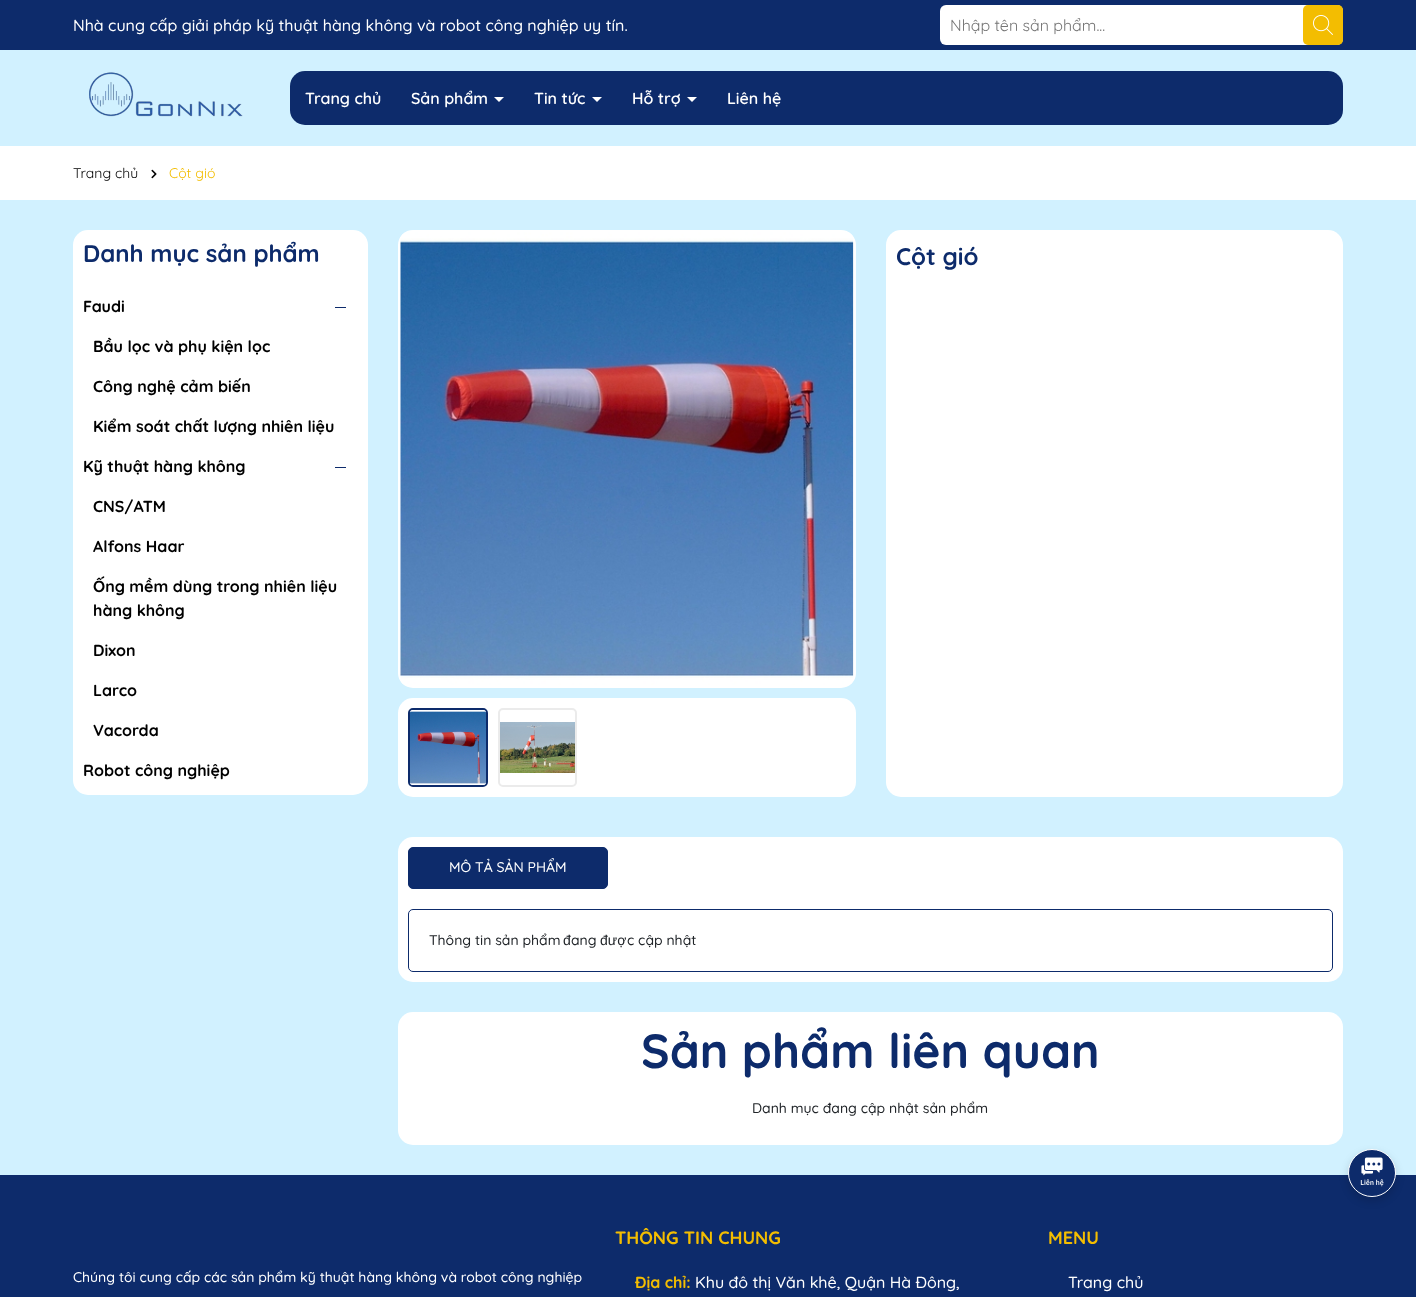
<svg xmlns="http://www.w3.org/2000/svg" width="1416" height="1297">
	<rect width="100%" height="100%" fill="#D1F1FF" />
	<rect x="0" y="0" width="1416" height="50" fill="#0D2B6B" />
	<text x="73" y="31" font-family="Quicksand" font-size="16" font-weight="500" fill="#FFFFFF">Nhà cung cấp giải pháp kỹ thuật hàng không và robot công nghiệp uy tín.</text>
	<rect x="940" y="5" width="403" height="40" rx="6" fill="#FFFFFF" />
	<text x="950" y="31" font-family="Quicksand" font-size="16" fill="#757575">Nhập tên sản phẩm...</text>
	<rect x="1303" y="5" width="40" height="40" rx="5" fill="#F3BD01" />
	<image x="1313" y="15" width="20" height="20" href="assets/img1.png" />
	<image x="89" y="72" width="154" height="45" href="assets/img2.png" />
	<rect x="290" y="71" width="1053" height="54" rx="15" fill="#0D2B6B" />
	<g font-family="Quicksand" font-size="16" font-weight="600" fill="#FFFFFF">
		<text x="305" y="104">Trang chủ</text>
		<text x="411" y="104">Sản phẩm</text>
	</g>
	<path d="M494 97H504L499 102Z" fill="#FFFFFF" />
	<text x="534" y="104" font-family="Quicksand" font-size="16" font-weight="600" fill="#FFFFFF">Tin tức</text>
	<path d="M592 97H602L597 102Z" fill="#FFFFFF" />
	<text x="632" y="104" font-family="Quicksand" font-size="16" font-weight="600" fill="#FFFFFF">Hỗ trợ</text>
	<path d="M687 97H697L692 102Z" fill="#FFFFFF" />
	<text x="727" y="104" font-family="Quicksand" font-size="16" font-weight="600" fill="#FFFFFF">Liên hệ</text>
	<rect x="0" y="146" width="1416" height="54" fill="#FFFFFF" />
	<text x="73" y="178" font-family="Quicksand" font-size="14" fill="#000000">Trang chủ</text>
	<image x="151" y="169" width="6" height="10" href="assets/img3.png" />
	<text x="169" y="178" font-family="Quicksand" font-size="14" fill="#F3BD01">Cột gió</text>
	<rect x="73" y="230" width="295" height="565" rx="15" fill="#FFFFFF" />
	<text x="83" y="262" font-family="Quicksand" font-size="24" font-weight="700" fill="#0D2B6B">Danh mục sản phẩm</text>
	<text x="83" y="312" font-family="Quicksand" font-size="16" font-weight="700" fill="#000000">Faudi</text>
	<rect x="335" y="307" width="11" height="1" fill="#0D2B6B" />
	<g font-family="Quicksand" font-size="16" font-weight="700" fill="#000000">
		<text x="93" y="352">Bầu lọc và phụ kiện lọc</text>
		<text x="93" y="392">Công nghệ cảm biến</text>
		<text x="93" y="432">Kiểm soát chất lượng nhiên liệu</text>
		<text x="83" y="472">Kỹ thuật hàng không</text>
	</g>
	<rect x="335" y="467" width="11" height="1" fill="#0D2B6B" />
	<g font-family="Quicksand" font-size="16" font-weight="700" fill="#000000">
		<text x="93" y="512">CNS/ATM</text>
		<text x="93" y="552">Alfons Haar</text>
		<text x="93" y="592">Ống mềm dùng trong nhiên liệu</text>
		<text x="93" y="616">hàng không</text>
		<text x="93" y="656">Dixon</text>
		<text x="93" y="696">Larco</text>
		<text x="93" y="736">Vacorda</text>
		<text x="83" y="776">Robot công nghiệp</text>
	</g>
	<rect x="398" y="230" width="458" height="458" rx="15" fill="#FFFFFF" />
	<image x="400" y="232" width="454" height="453" href="assets/img4.png" />
	<rect x="398" y="698" width="458" height="99" rx="15" fill="#FFFFFF" />
	<rect x="409" y="709" width="78" height="77" rx="4" fill="none" stroke="#0D2B6B" stroke-width="2" />
	<image x="410" y="710" width="76" height="75" href="assets/img5.png" />
	<rect x="499" y="709" width="77" height="77" rx="4" fill="none" stroke="#EBEBEB" stroke-width="2" />
	<image x="500" y="722" width="75" height="51" href="assets/img6.png" />
	<rect x="886" y="230" width="457" height="567" rx="15" fill="#FFFFFF" />
	<text x="896" y="265" font-family="Quicksand" font-size="24" font-weight="700" fill="#0D2B6B">Cột gió</text>
	<rect x="398" y="837" width="945" height="145" rx="15" fill="#FFFFFF" />
	<rect x="408.5" y="847.5" width="199" height="41" rx="4.5" fill="#0D2B6B" stroke="#0D2B6B" />
	<text x="449" y="872" font-family="Quicksand" font-size="14" font-weight="500" fill="#FFFFFF">MÔ TẢ SẢN PHẨM</text>
	<rect x="408.5" y="909.5" width="924" height="62" rx="4.5" fill="none" stroke="#0D2B6B" />
	<text x="429" y="945" font-family="Quicksand" font-size="14" font-weight="500" fill="#212529">Thông tin sản phẩm</text>
	<text x="563" y="945" font-family="Liberation Sans" font-size="14" fill="#212529">đ</text>
	<text x="571" y="945" font-family="Quicksand" font-size="14" font-weight="500" fill="#212529">ang</text>
	<text x="600" y="945" font-family="Liberation Sans" font-size="14" fill="#212529">đượ</text>
	<text x="627" y="945" font-family="Quicksand" font-size="14" font-weight="500" fill="#212529">c cập nhật</text>
	<rect x="398" y="1012" width="945" height="133" rx="15" fill="#FFFFFF" />
	<text x="641" y="1068" font-family="Quicksand" font-size="48" font-weight="700" fill="#0D2B6B">Sản phẩm liên quan</text>
	<text x="752" y="1113" font-family="Quicksand" font-size="14" font-weight="500" fill="#212529">Danh mục đang cập nhật sản phẩm</text>
	<rect x="0" y="1175" width="1416" height="122" fill="#0D2B6B" />
	<rect x="1348" y="1153" width="48" height="48" rx="24" fill="#000000" fill-opacity="0.15" filter="blur(4px)" />
	<circle cx="1372" cy="1173" r="23.5" fill="#0D2B6B" stroke="#FFFFFF" />
	<image x="1360" y="1157" width="24" height="30" href="assets/img7.png" />
	<text x="73" y="1282" font-family="Quicksand" font-size="14" font-weight="500" fill="#FFFFFF">Chúng tôi cung cấp các sản phẩm kỹ thuật hàng không và robot công nghiệp</text>
	<text x="615" y="1244" font-family="Quicksand" font-size="18" font-weight="700" fill="#F3BD01">THÔNG TIN CHUNG</text>
	<text x="635" y="1288" font-family="Quicksand" font-size="16" font-weight="700" fill="#F3BD01">Địa chỉ:</text>
	<text x="695" y="1288" font-family="Quicksand" font-size="16" font-weight="500" fill="#FFFFFF">Khu đô thị Văn khê, Quận Hà Đông,</text>
	<text x="1048" y="1244" font-family="Quicksand" font-size="18" font-weight="700" fill="#F3BD01">MENU</text>
	<text x="1068" y="1288" font-family="Quicksand" font-size="16" font-weight="500" fill="#FFFFFF">Trang chủ</text>
</svg>
